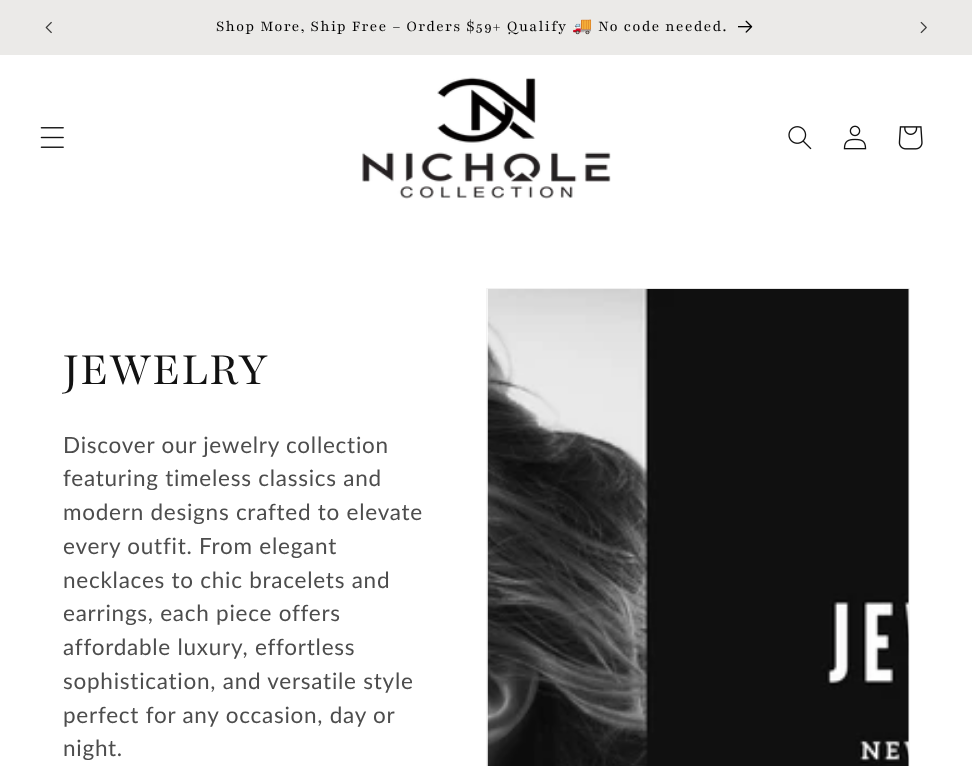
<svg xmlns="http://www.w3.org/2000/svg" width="972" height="766">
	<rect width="100%" height="100%" fill="#FFFFFF" />
	<rect x="0" y="0" width="972" height="55" fill="#EBEAE8" />
	<image x="45" y="21" width="7" height="13" href="assets/img1.png" />
	<text x="216" y="31" font-family="'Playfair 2'" font-size="16.25" letter-spacing="1.25" fill="#000000">Shop More, Ship Free – Orders $59+ Qualify</text>
	<text x="572" y="31" font-family="Noto Color Emoji" font-size="16.25" letter-spacing="1.25" fill="#000000">🚚</text>
	<text x="598" y="31" font-family="'Playfair 2'" font-size="16.25" letter-spacing="1.25" fill="#000000">No code needed.</text>
	<image x="738" y="20" width="15" height="13" href="assets/img2.png" />
	<image x="920" y="21" width="7" height="13" href="assets/img3.png" />
	<image x="40" y="127" width="24" height="21" href="assets/img4.png" />
	<image x="362" y="77" width="249" height="122" href="assets/img5.png" />
	<image x="788" y="126" width="24" height="24" href="assets/img6.png" />
	<image x="843" y="125" width="24" height="25" href="assets/img7.png" />
	<image x="898" y="126" width="25" height="24" href="assets/img8.png" />
	<text x="63" y="384" font-family="Playfair" font-size="50" letter-spacing="0.75" fill="#121212">JEWELRY</text>
	<g font-family="Lato" font-size="22.5" letter-spacing="0.75" fill="#4D4D4D">
		<text x="63" y="453">Discover our jewelry collection</text>
		<text x="63" y="486">featuring timeless classics and</text>
		<text x="63" y="520">modern designs crafted to elevate</text>
		<text x="63" y="554">every outfit. From elegant</text>
		<text x="63" y="588">necklaces to chic bracelets and</text>
		<text x="63" y="621">earrings, each piece offers</text>
		<text x="63" y="655">affordable luxury, effortless</text>
		<text x="63" y="689">sophistication, and versatile style</text>
		<text x="63" y="723">perfect for any occasion, day or</text>
		<text x="63" y="756">night.</text>
	</g>
	<rect x="486.5" y="288.5" width="423" height="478" fill="none" stroke="#F3F3F3" />
	<image x="487" y="288" width="422" height="478" href="assets/img9.png" />
</svg>
